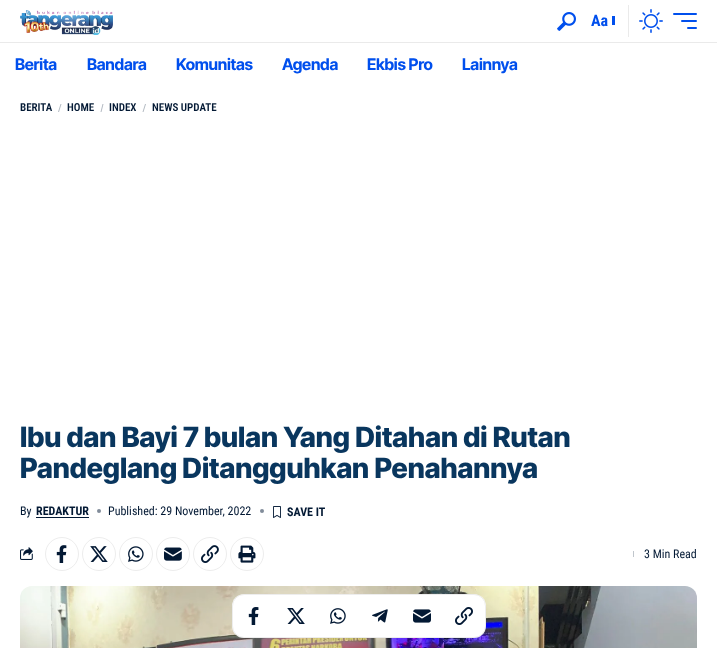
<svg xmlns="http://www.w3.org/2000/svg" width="717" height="648">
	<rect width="100%" height="100%" fill="#FFFFFF" />
	<image x="20" y="10" width="93" height="25" href="assets/img1.png" />
	<image x="557" y="12" width="19" height="19" href="assets/img2.png" />
	<text x="591" y="26" font-family="Roboto Condensed" font-size="16" font-weight="700" fill="#004FED">Aa</text>
	<rect x="612" y="16" width="3" height="9" fill="#004FED" />
	<rect x="628" y="5" width="1" height="32" fill="#EAEAEA" />
	<image x="639" y="9" width="24" height="24" href="assets/img3.png" />
	<rect x="673" y="13" width="24" height="2" rx="1" fill="#004FED" />
	<rect x="681" y="20" width="16" height="2" rx="1" fill="#004FED" />
	<rect x="687" y="27" width="10" height="2" rx="1" fill="#004FED" />
	<rect x="0" y="42" width="717" height="1" fill="#EAEAEA" />
	<g font-family="Inter Tight" font-size="16" font-weight="700" letter-spacing="-0.25" fill="#004FED">
		<text x="15" y="70">Berita</text>
		<text x="87" y="70">Bandara</text>
		<text x="176" y="70">Komunitas</text>
		<text x="282" y="70">Agenda</text>
		<text x="367" y="70">Ekbis Pro</text>
		<text x="462" y="70">Lainnya</text>
	</g>
	<text x="20" y="111" font-family="Roboto Condensed" font-size="11" font-weight="600" fill="#031934">BERITA</text>
	<path d="M60.5 104H61.5L59 112H58Z" fill="#B3BAC2" />
	<text x="67" y="111" font-family="Roboto Condensed" font-size="11" font-weight="600" fill="#031934">HOME</text>
	<path d="M102.5 104H103.5L101.5 112H100.5Z" fill="#B3BAC2" />
	<text x="109" y="111" font-family="Roboto Condensed" font-size="11" font-weight="600" fill="#031934">INDEX</text>
	<path d="M145 104H146L143.5 112H142.5Z" fill="#B3BAC2" />
	<text x="152" y="111" font-family="Roboto Condensed" font-size="11" font-weight="600" fill="#031934">NEWS UPDATE</text>
	<g font-family="Inter Tight" font-size="28" font-weight="800" fill="#09365E">
		<text x="20" y="447">Ibu dan Bayi 7 bulan Yang Ditahan di Rutan</text>
		<text x="20" y="478">Pandeglang Ditangguhkan Penahannya</text>
	</g>
	<text x="20" y="515" font-family="Roboto Condensed" font-size="12" fill="#031934">By</text>
	<text x="36" y="515" font-family="Roboto Condensed" font-size="12" font-weight="700" fill="#031934">REDAKTUR</text>
	<rect x="36" y="517" width="53" height="1" fill="#031934" />
	<circle cx="99" cy="511" r="2" fill="#818C9A" />
	<text x="108" y="515" font-family="Roboto Condensed" font-size="12" fill="#031934">Published: 29 November, 2022</text>
	<circle cx="262" cy="511" r="2" fill="#818C9A" />
	<image x="273" y="506" width="8" height="12" href="assets/img4.png" />
	<text x="287" y="516" font-family="Roboto Condensed" font-size="12" font-weight="700" fill="#031934">SAVE IT</text>
	<image x="20" y="547" width="13" height="13" href="assets/img5.png" />
	<circle cx="62" cy="554" r="16.5" fill="none" stroke="#EDEDED" />
	<image x="56" y="545" width="11" height="18" href="assets/img6.png" />
	<circle cx="99" cy="554" r="16.5" fill="none" stroke="#EDEDED" />
	<image x="90" y="546" width="18" height="16" href="assets/img7.png" />
	<circle cx="136" cy="554" r="16.5" fill="none" stroke="#EDEDED" />
	<image x="128" y="546" width="16" height="16" href="assets/img8.png" />
	<circle cx="173" cy="554" r="16.5" fill="none" stroke="#EDEDED" />
	<image x="164" y="547" width="18" height="14" href="assets/img9.png" />
	<circle cx="210" cy="554" r="16.5" fill="none" stroke="#EDEDED" />
	<image x="201" y="545" width="18" height="18" href="assets/img10.png" />
	<circle cx="247" cy="554" r="16.5" fill="none" stroke="#EDEDED" />
	<image x="238" y="545" width="18" height="18" href="assets/img11.png" />
	<rect x="633" y="551" width="1" height="6" fill="#C0C6CC" />
	<text x="644" y="558" font-family="Roboto Condensed" font-size="12" fill="#031934">3 Min Read</text>
	<image x="20" y="586" width="677" height="62" href="assets/img12.png" />
	<rect x="232" y="594" width="254" height="44" rx="12" fill="#FFFFFF" />
	<rect x="232.5" y="594.5" width="253" height="43" rx="11.5" fill="none" stroke="#888888" stroke-opacity="0.15" />
	<image x="248" y="607" width="11" height="18" href="assets/img13.png" />
	<image x="287" y="608" width="18" height="16" href="assets/img14.png" />
	<image x="330" y="608" width="16" height="16" href="assets/img15.png" />
	<image x="372" y="609" width="16" height="14" href="assets/img16.png" />
	<image x="413" y="609" width="18" height="14" href="assets/img17.png" />
	<image x="455" y="607" width="18" height="18" href="assets/img18.png" />
</svg>
